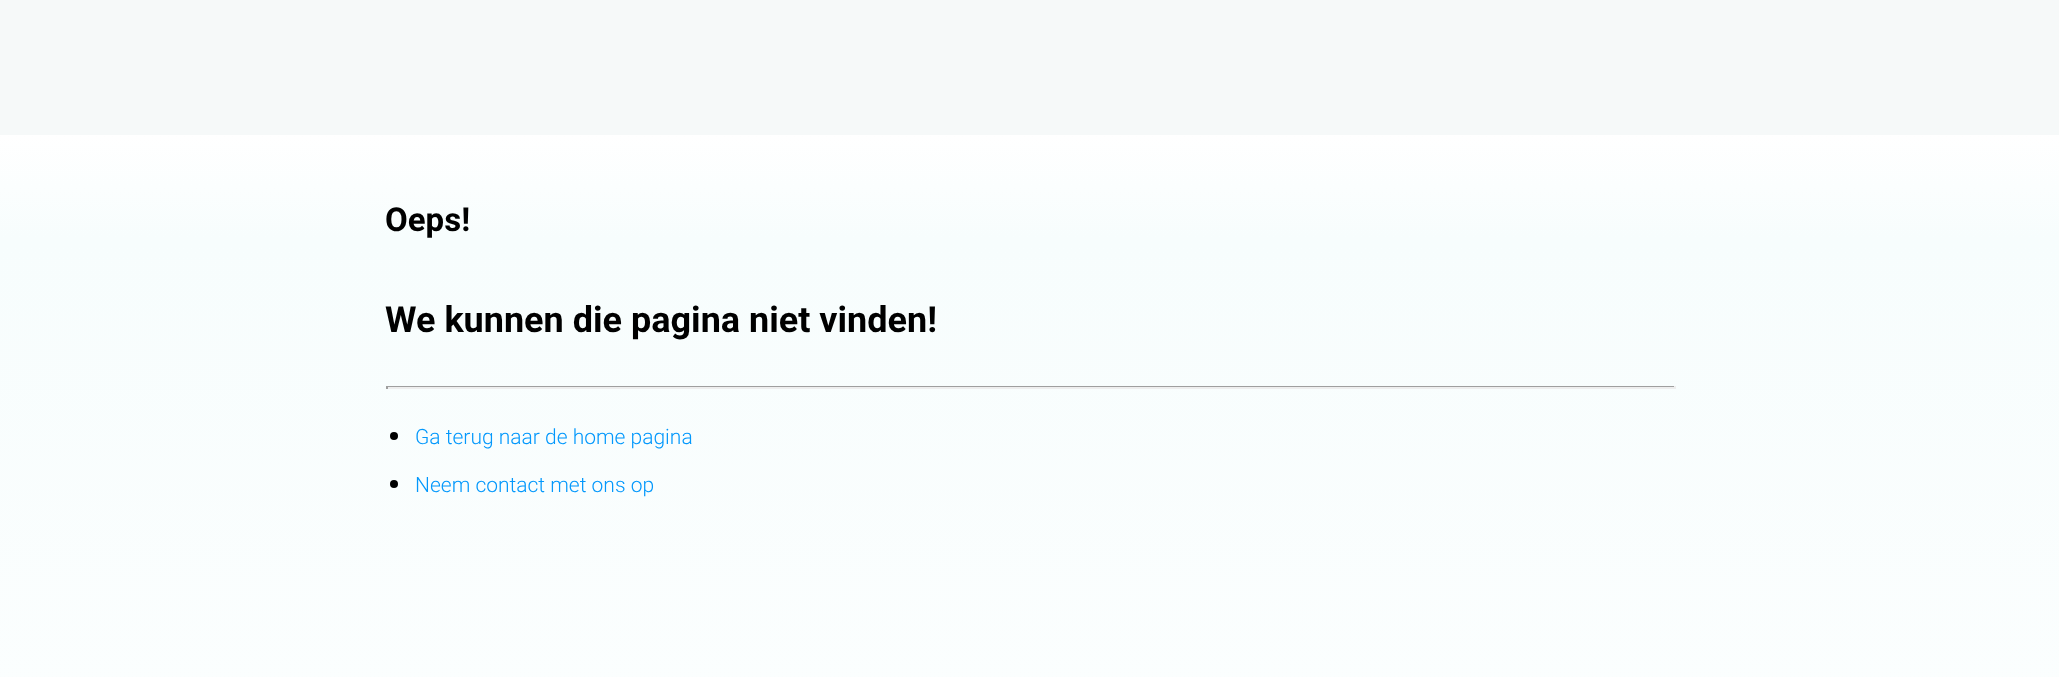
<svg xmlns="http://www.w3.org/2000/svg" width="2059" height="677">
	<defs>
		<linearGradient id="g1" gradientUnits="userSpaceOnUse" x1="1030" y1="135" x2="1030" y2="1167"><stop offset="0" stop-color="#FFFFFF" /><stop offset="0.1" stop-color="#F7FDFD" /><stop offset="1" stop-color="#FFFFFF" /></linearGradient>
	</defs>
	<rect width="100%" height="100%" fill="#F6F9F9" />
	<rect x="0" y="135" width="2059" height="542" fill="url(#g1)" />
	<text x="385" y="231" font-family="Roboto" font-size="33" font-weight="700" fill="#000000">Oeps!</text>
	<text x="385" y="332" font-family="Roboto" font-size="36" font-weight="700" fill="#000000">We kunnen die pagina niet vinden!</text>
	<rect x="386" y="386" width="1290" height="1" fill="#9F9F9F" />
	<rect x="1674" y="386" width="2" height="3" fill="#EEEEEE" />
	<rect x="386" y="387" width="1290" height="2" fill="#EEEEEE" />
	<rect x="386" y="386" width="2" height="3" fill="#9F9F9F" />
	<circle cx="394" cy="436" r="4" fill="#000000" />
	<text x="415" y="444" font-family="Roboto" font-size="21" font-weight="300" fill="#0398FC">Ga terug naar de home pagina</text>
	<circle cx="394" cy="484" r="4" fill="#000000" />
	<text x="415" y="492" font-family="Roboto" font-size="21" font-weight="300" fill="#0398FC">Neem contact met ons op</text>
</svg>
